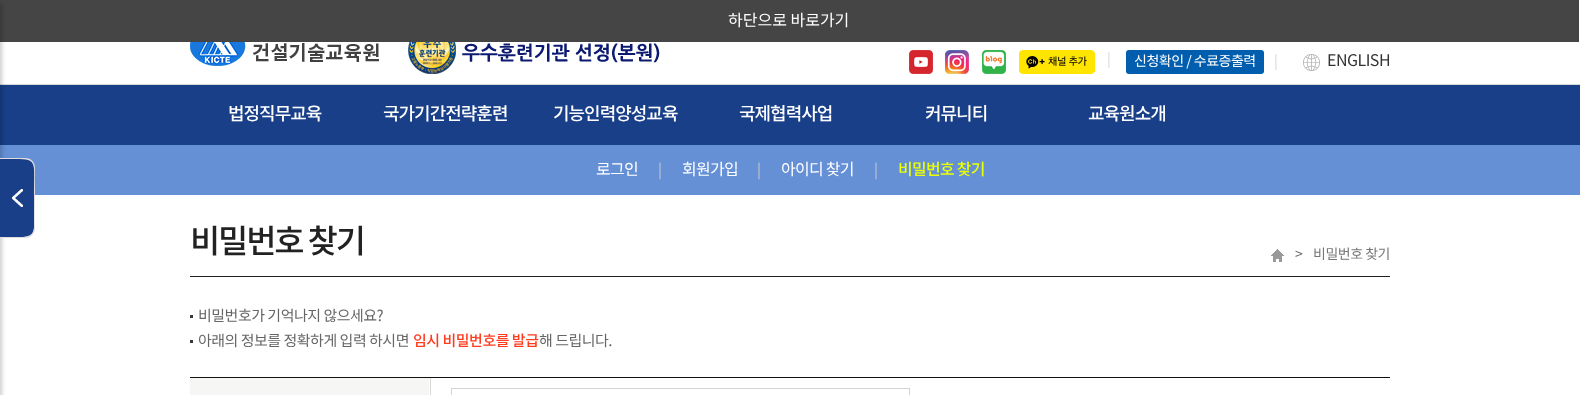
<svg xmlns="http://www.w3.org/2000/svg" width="1580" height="395">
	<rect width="100%" height="100%" fill="#FFFFFF" />
	<rect x="0" y="0" width="1579" height="42" fill="#454545" />
	<rect x="0" y="84" width="1580" height="1" fill="#D8D8D8" />
	<rect x="0" y="85" width="1580" height="60" fill="#183F88" />
	<rect x="0" y="145" width="1580" height="50" fill="#6590D6" />
	<rect x="-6" y="3" width="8" height="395" fill="#000000" fill-opacity="0.2" filter="blur(2px)" />
	<path d="M0 159H25C30 159 34 163 34 168V228C34 233 30 237 25 237H0Z" fill="#183F88" />
	<image x="12" y="189" width="11" height="18" href="assets/img1.png" />
	<path d="M0 158H25C31 158 35 162 35 168V228C35 234 31 238 25 238H0ZM0 159C40 159 34 155 34 198C34 241 40 237 0 237Z" fill="#DDDDDD" fill-rule="evenodd" />
	<text x="728" y="26" font-family="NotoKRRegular" font-size="16" fill="#FFFFFF">하단으로 바로가기</text>
	<image x="190" y="42" width="189" height="24" href="assets/img2.png" />
	<image x="408" y="42" width="252" height="32" href="assets/img3.png" />
	<image x="909" y="50" width="24" height="24" href="assets/img4.png" />
	<image x="945" y="50" width="24" height="24" href="assets/img5.png" />
	<image x="982" y="50" width="24" height="24" href="assets/img6.png" />
	<image x="1019" y="50" width="76" height="24" href="assets/img7.png" />
	<text x="1107" y="64" font-family="NotoKRRegular" font-size="14" letter-spacing="-0.5" fill="#D6D6D6">|</text>
	<rect x="1126" y="50" width="138" height="24" rx="3" fill="#015EAE" />
	<text x="1134" y="66" font-family="NotoKRRegular" font-size="14" letter-spacing="-0.5" fill="#FFFFFF">신청확인 / 수료증출력</text>
	<text x="1274" y="66" font-family="NotoKRRegular" font-size="14" letter-spacing="-0.5" fill="#D6D6D6">|</text>
	<image x="1303" y="54" width="17" height="17" href="assets/img8.png" />
	<text x="1327" y="66" font-family="NotoKRRegular" font-size="16" letter-spacing="-0.5" fill="#333333">ENGLISH</text>
	<g font-family="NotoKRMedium" font-size="18" font-weight="500" letter-spacing="-1" fill="#FFFFFF">
		<text x="228" y="120">법정직무교육</text>
		<text x="383" y="120">국가기간전략훈련</text>
		<text x="553" y="120">기능인력양성교육</text>
		<text x="739" y="120">국제협력사업</text>
		<text x="925" y="120">커뮤니티</text>
		<text x="1088" y="120">교육원소개</text>
	</g>
	<text x="596" y="175" font-family="NotoKRRegular" font-size="16" letter-spacing="-0.75" fill="#FFFFFF">로그인</text>
	<text x="658" y="175" font-family="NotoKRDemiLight" font-size="15" font-weight="300" fill="#CCCCCC">|</text>
	<text x="682" y="175" font-family="NotoKRRegular" font-size="16" letter-spacing="-0.75" fill="#FFFFFF">회원가입</text>
	<text x="757" y="175" font-family="NotoKRDemiLight" font-size="15" font-weight="300" fill="#CCCCCC">|</text>
	<text x="781" y="175" font-family="NotoKRRegular" font-size="16" letter-spacing="-0.75" fill="#FFFFFF">아이디 찾기</text>
	<text x="874" y="175" font-family="NotoKRDemiLight" font-size="15" font-weight="300" fill="#CCCCCC">|</text>
	<text x="898" y="175" font-family="NotoKRMedium" font-size="16" font-weight="500" letter-spacing="-0.75" fill="#E9FF03">비밀번호 찾기</text>
	<rect x="190" y="276" width="1200" height="1" fill="#222222" />
	<text x="190" y="253" font-family="NotoKRMedium" font-size="33" font-weight="500" letter-spacing="-2.25" fill="#222222">비밀번호 찾기</text>
	<image x="1271" y="249" width="13" height="13" href="assets/img9.png" />
	<text x="1295" y="259" font-family="NotoKRRegular" font-size="14" letter-spacing="-0.5" fill="#666666">&gt;</text>
	<text x="1313" y="259" font-family="NotoKRRegular" font-size="14" letter-spacing="-0.5" fill="#777777">비밀번호 찾기</text>
	<rect x="190" y="315" width="3" height="3" fill="#383838" />
	<text x="198" y="321" font-family="NotoKRRegular" font-size="15" letter-spacing="-0.5" fill="#666666">비밀번호가 기억나지 않으세요?</text>
	<rect x="190" y="340" width="3" height="3" fill="#383838" />
	<text x="198" y="346" font-family="NotoKRRegular" font-size="15" letter-spacing="-0.5" fill="#666666">아래의 정보를 정확하게 입력 하시면</text>
	<text x="413" y="346" font-family="NotoKRMedium" font-size="15" font-weight="500" letter-spacing="-0.5" fill="#FF3B1D">임시 비밀번호를 발급</text>
	<text x="539" y="346" font-family="NotoKRRegular" font-size="15" letter-spacing="-0.5" fill="#666666">해 드립니다.</text>
	<rect x="190" y="377" width="1200" height="1" fill="#111111" />
	<rect x="190" y="378" width="239" height="17" fill="#F6F6F5" />
	<rect x="430" y="378" width="1" height="17" fill="#D8D8D8" />
	<rect x="451.5" y="388.5" width="458" height="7" fill="none" stroke="#D4D4D4" />
</svg>
